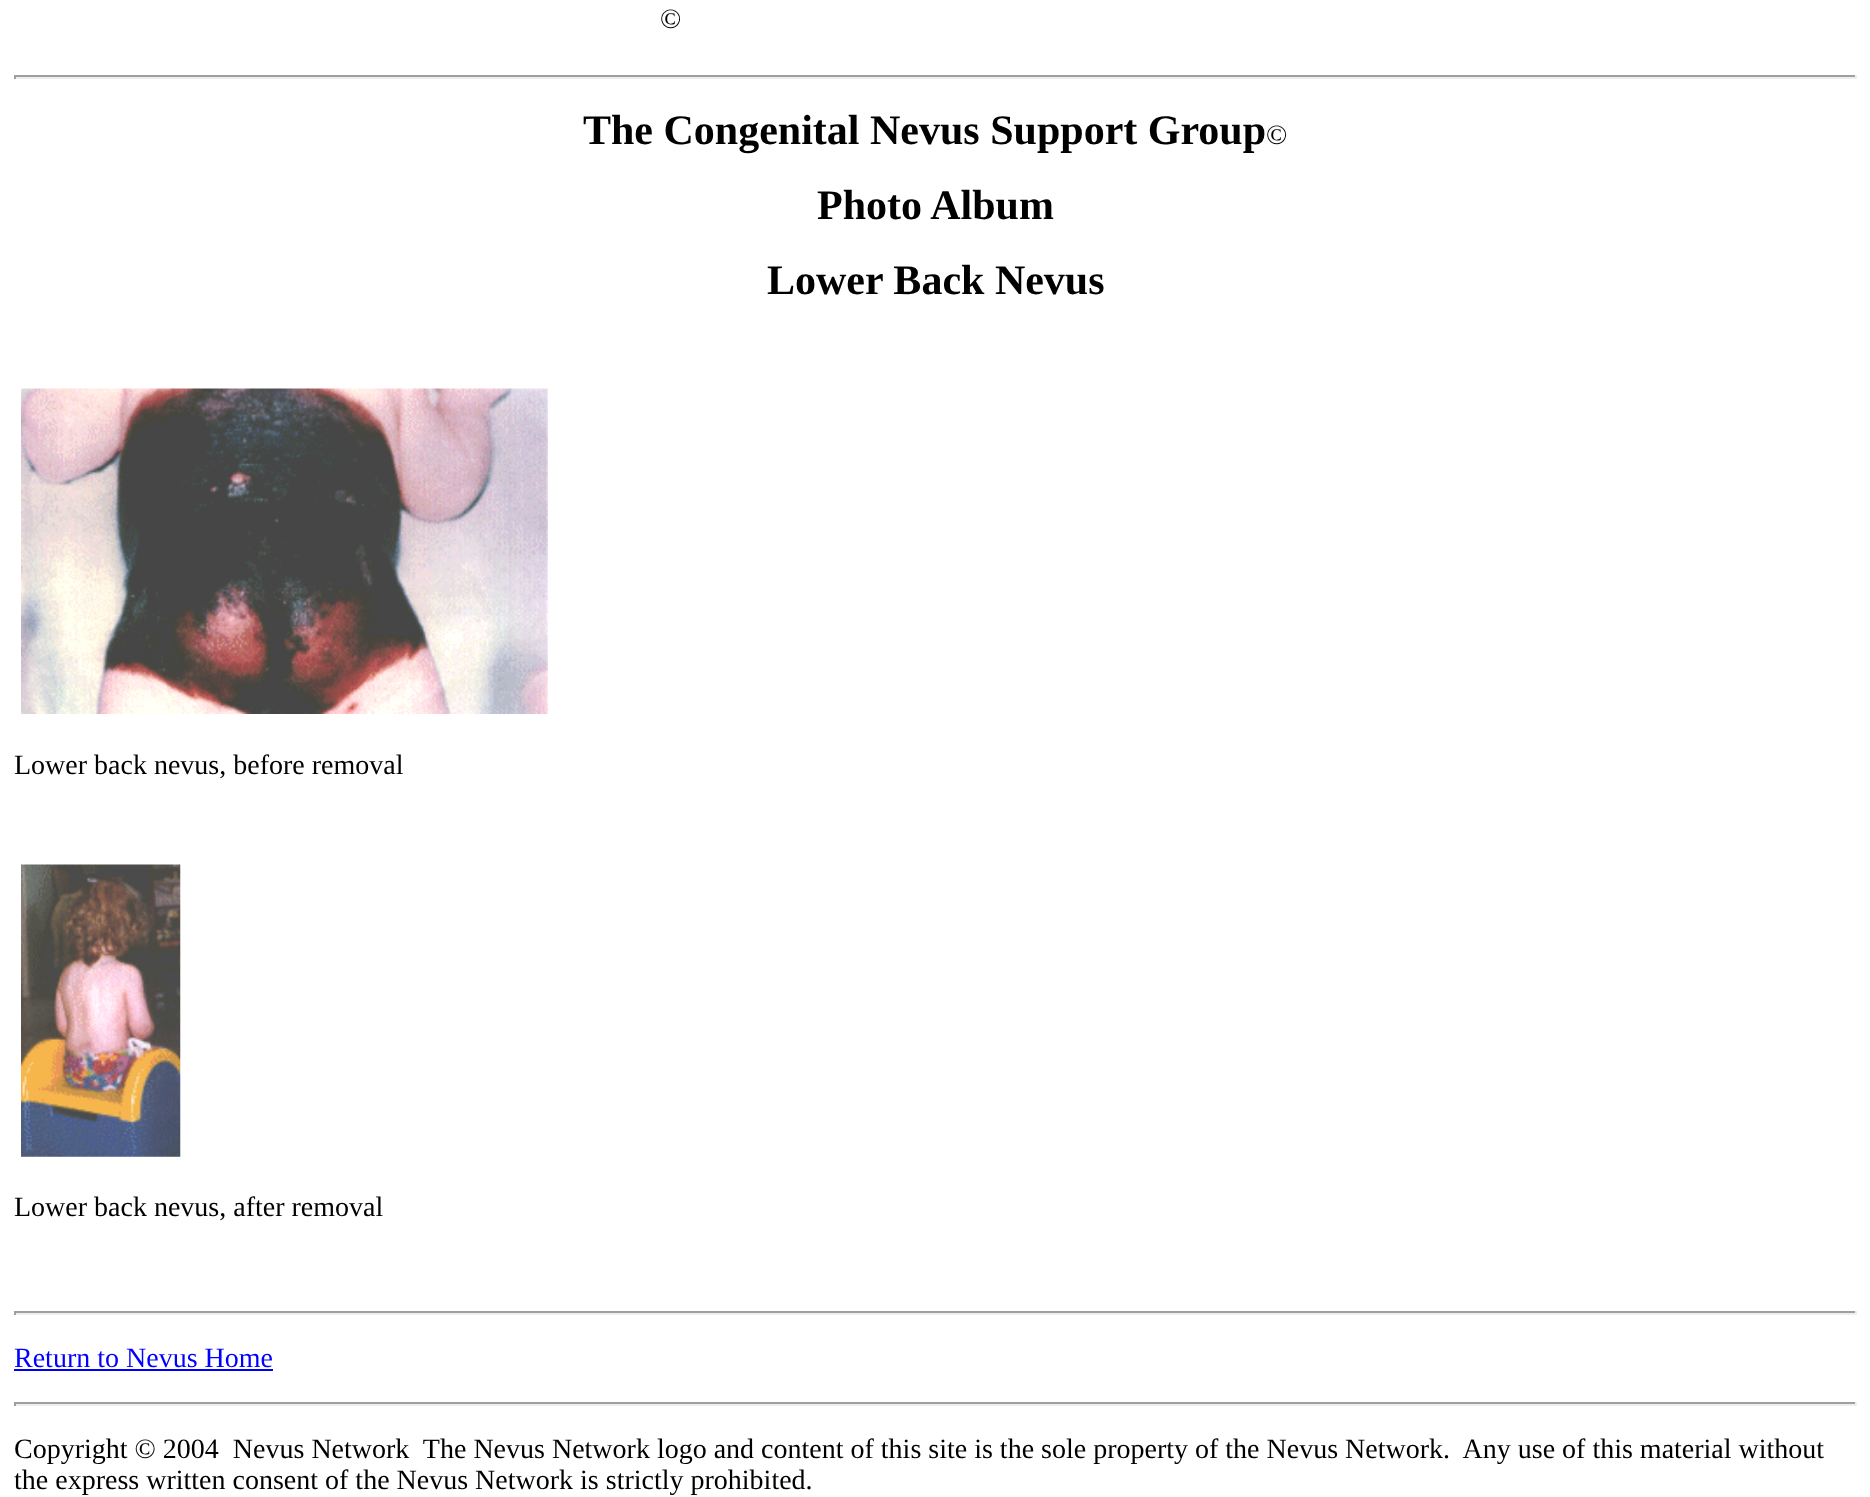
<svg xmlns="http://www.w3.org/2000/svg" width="1870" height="1497">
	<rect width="100%" height="100%" fill="#FFFFFF" />
	<text x="660" y="28" font-family="Liberation Serif" font-size="28" fill="#000000">©</text>
	<rect x="14" y="75" width="1843" height="2" fill="#9F9F9F" />
	<rect x="1855" y="75" width="2" height="4" fill="#EEEEEE" />
	<rect x="14" y="77" width="1843" height="2" fill="#EEEEEE" />
	<rect x="14" y="75" width="2" height="4" fill="#9F9F9F" />
	<text x="583" y="144" font-family="Liberation Serif" font-size="42" font-weight="700" fill="#000000">The Congenital Nevus Support Group</text>
	<text x="1266" y="144" font-family="Liberation Serif" font-size="28" fill="#000000">©</text>
	<g font-family="Liberation Serif" font-size="42" font-weight="700" fill="#000000">
		<text x="817" y="219">Photo Album</text>
		<text x="767" y="294">Lower Back Nevus</text>
	</g>
	<image x="21" y="388" width="527" height="326" href="assets/img1.png" />
	<text x="14" y="774" font-family="Liberation Serif" font-size="28" fill="#000000">Lower back nevus, before removal</text>
	<image x="21" y="864" width="160" height="293" href="assets/img2.png" />
	<text x="14" y="1216" font-family="Liberation Serif" font-size="28" fill="#000000">Lower back nevus, after removal</text>
	<rect x="14" y="1311" width="1843" height="2" fill="#9F9F9F" />
	<rect x="1855" y="1311" width="2" height="4" fill="#EEEEEE" />
	<rect x="14" y="1313" width="1843" height="2" fill="#EEEEEE" />
	<rect x="14" y="1311" width="2" height="4" fill="#9F9F9F" />
	<text x="14" y="1367" font-family="Liberation Serif" font-size="28" fill="#0000FF">Return to Nevus Home</text>
	<rect x="14" y="1369" width="259" height="2" fill="#0000FF" />
	<rect x="14" y="1402" width="1843" height="2" fill="#9F9F9F" />
	<rect x="1855" y="1402" width="2" height="4" fill="#EEEEEE" />
	<rect x="14" y="1404" width="1843" height="2" fill="#EEEEEE" />
	<rect x="14" y="1402" width="2" height="4" fill="#9F9F9F" />
	<g font-family="Liberation Serif" font-size="28" fill="#000000">
		<text x="14" y="1458" xml:space="preserve">Copyright © 2004  Nevus Network  The Nevus Network logo and content of this site is the sole property of the Nevus Network.  Any use of this material without</text>
		<text x="14" y="1489">the express written consent of the Nevus Network is strictly prohibited.</text>
	</g>
</svg>
